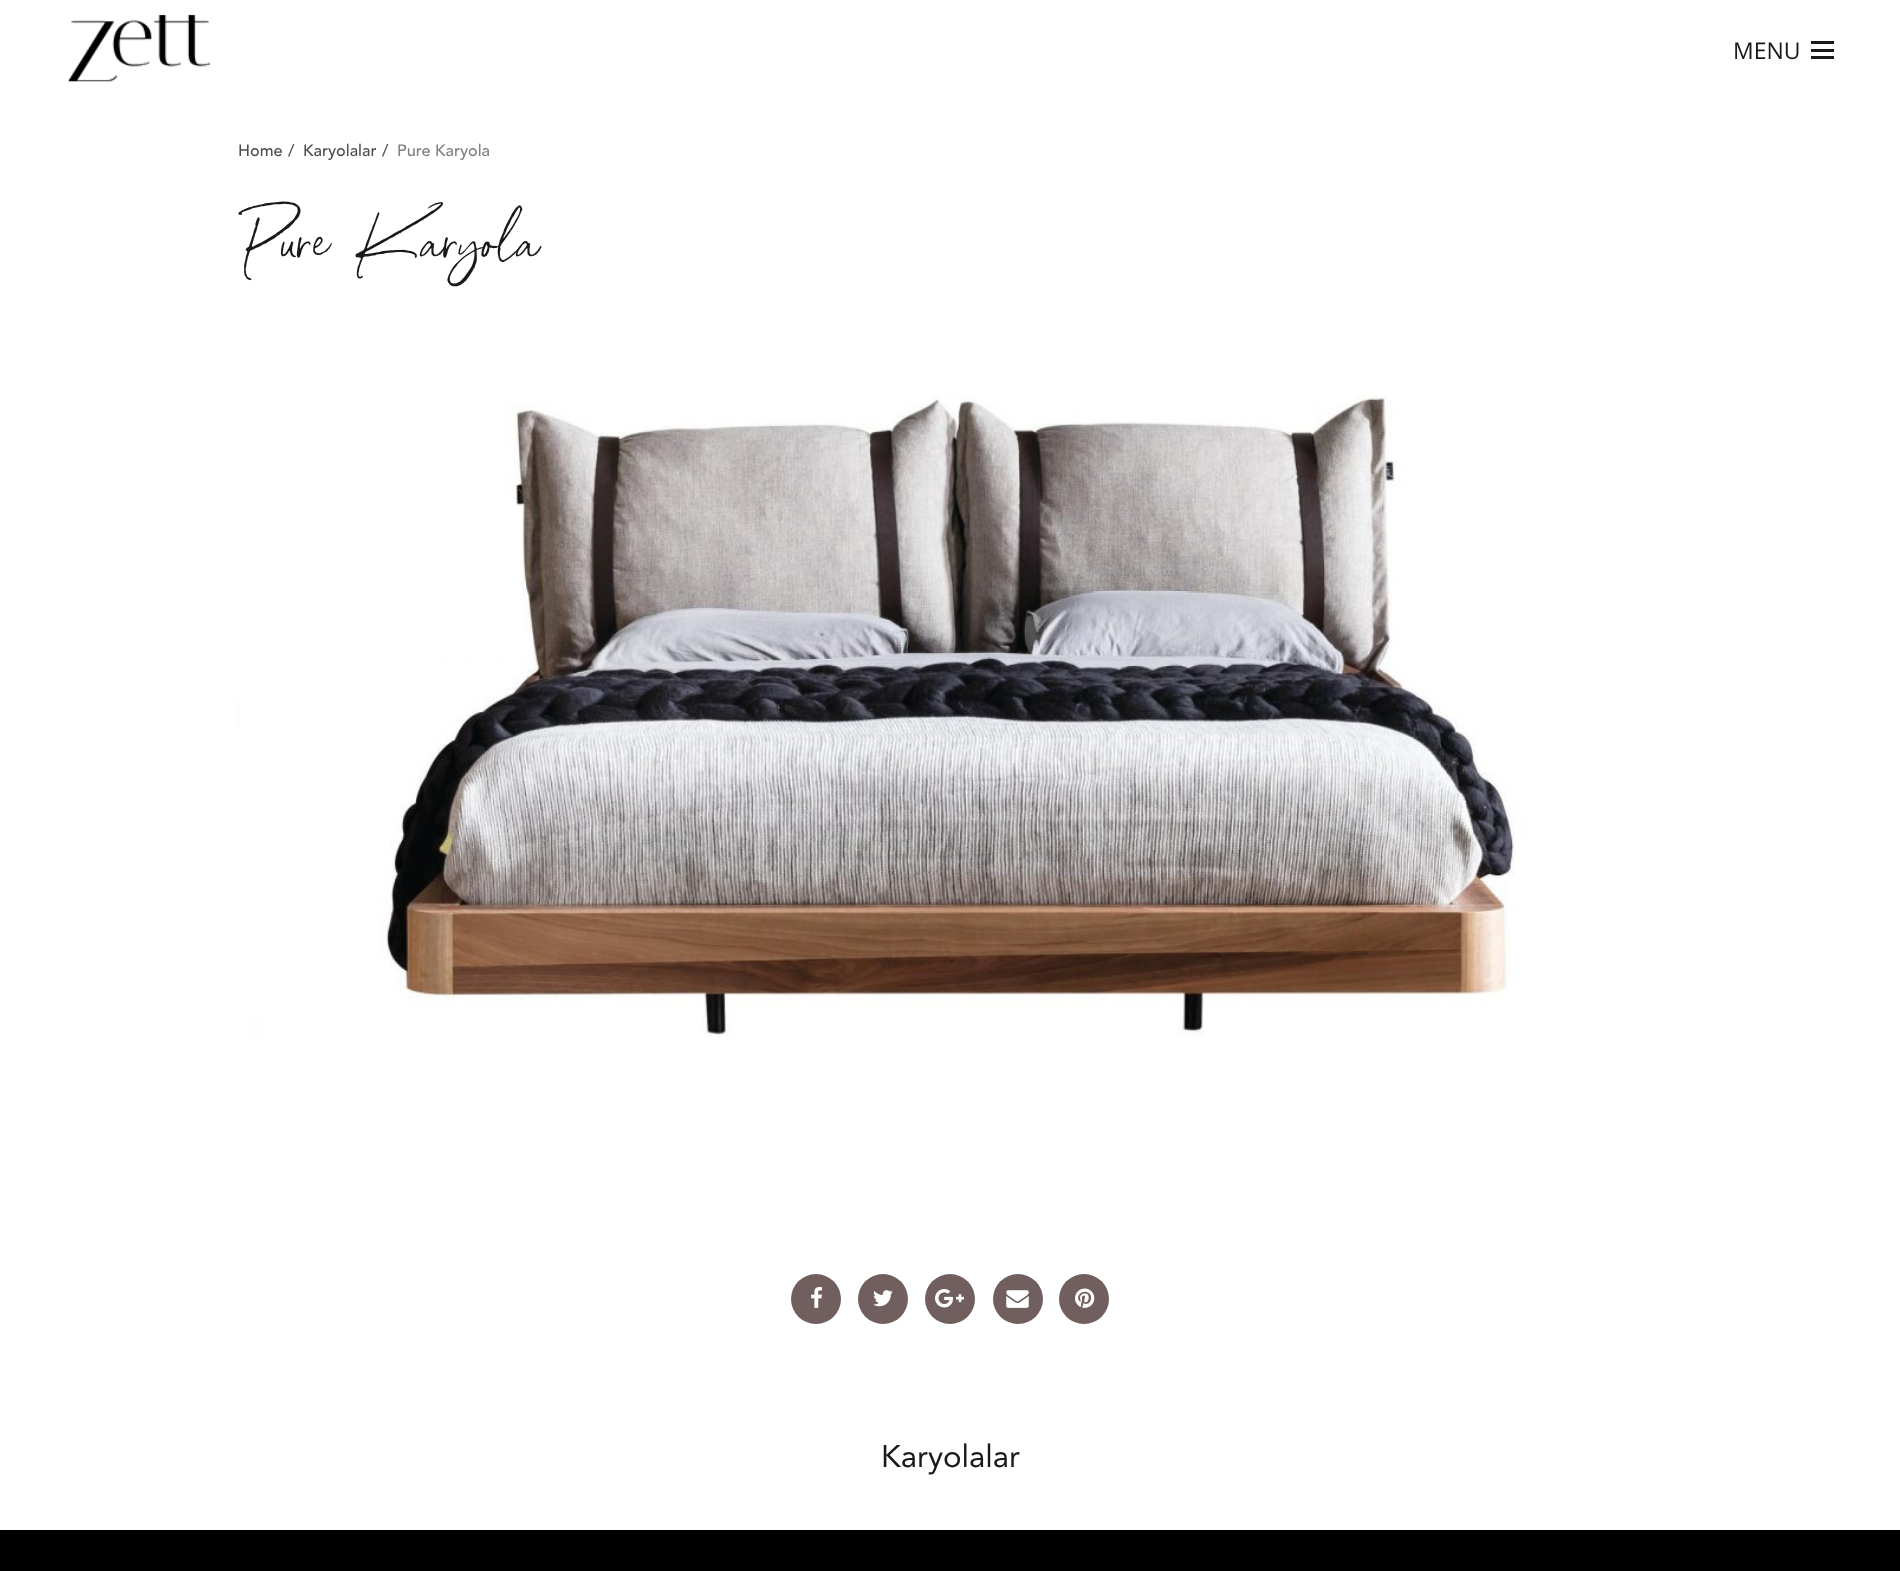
<svg xmlns="http://www.w3.org/2000/svg" width="1900" height="1571">
	<defs>
		<clipPath id="clip1"><rect x="238" y="290" width="1418" height="851" /></clipPath>
	</defs>
	<rect width="100%" height="100%" fill="#FFFFFF" />
	<image x="68" y="14" width="143" height="68" href="assets/img1.png" />
	<text x="1733" y="59" font-family="Open Sans" font-size="23" fill="#1B1919">MENU</text>
	<rect x="1811" y="49" width="23" height="3" fill="#1A1A1A" />
	<rect x="1811" y="41" width="23" height="3" fill="#1A1A1A" />
	<rect x="1811" y="56" width="23" height="3" fill="#1A1A1A" />
	<g font-family="Avenir" font-size="16.25" font-weight="500" fill="#4D4D4D">
		<text x="238" y="156">Home</text>
		<text x="288" y="156">/</text>
		<text x="303" y="156">Karyolalar</text>
		<text x="382" y="156">/</text>
	</g>
	<text x="397" y="156" font-family="Avenir" font-size="16.25" font-weight="500" fill="#808080">Pure Karyola</text>
	<text x="238" y="275" font-family="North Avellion" font-size="105" fill="#1B1919">Pure Karyola</text>
	<g clip-path="url(#clip1)">
		<rect x="238.5" y="700.5" width="1420" height="25" fill="none" stroke="#F9F9F9" />
	</g>
	<image x="239" y="394" width="1417" height="643" href="assets/img2.png" />
	<circle cx="816" cy="1299" r="25" fill="#715E5E" />
	<image x="811" y="1287" width="12" height="21" href="assets/img3.png" />
	<circle cx="883" cy="1299" r="25" fill="#715E5E" />
	<image x="873" y="1290" width="20" height="17" href="assets/img4.png" />
	<circle cx="950" cy="1299" r="25" fill="#715E5E" />
	<image x="935" y="1289" width="29" height="19" href="assets/img5.png" />
	<circle cx="1018" cy="1299" r="25" fill="#715E5E" />
	<image x="1006" y="1290" width="23" height="18" href="assets/img6.png" />
	<circle cx="1084" cy="1299" r="25" fill="#715E5E" />
	<image x="1075" y="1288" width="20" height="20" href="assets/img7.png" />
	<text x="881" y="1467" font-family="Avenir" font-size="31.25" fill="#1B1919">Karyolalar</text>
	<rect x="0" y="1530" width="1900" height="41" fill="#000000" />
</svg>
